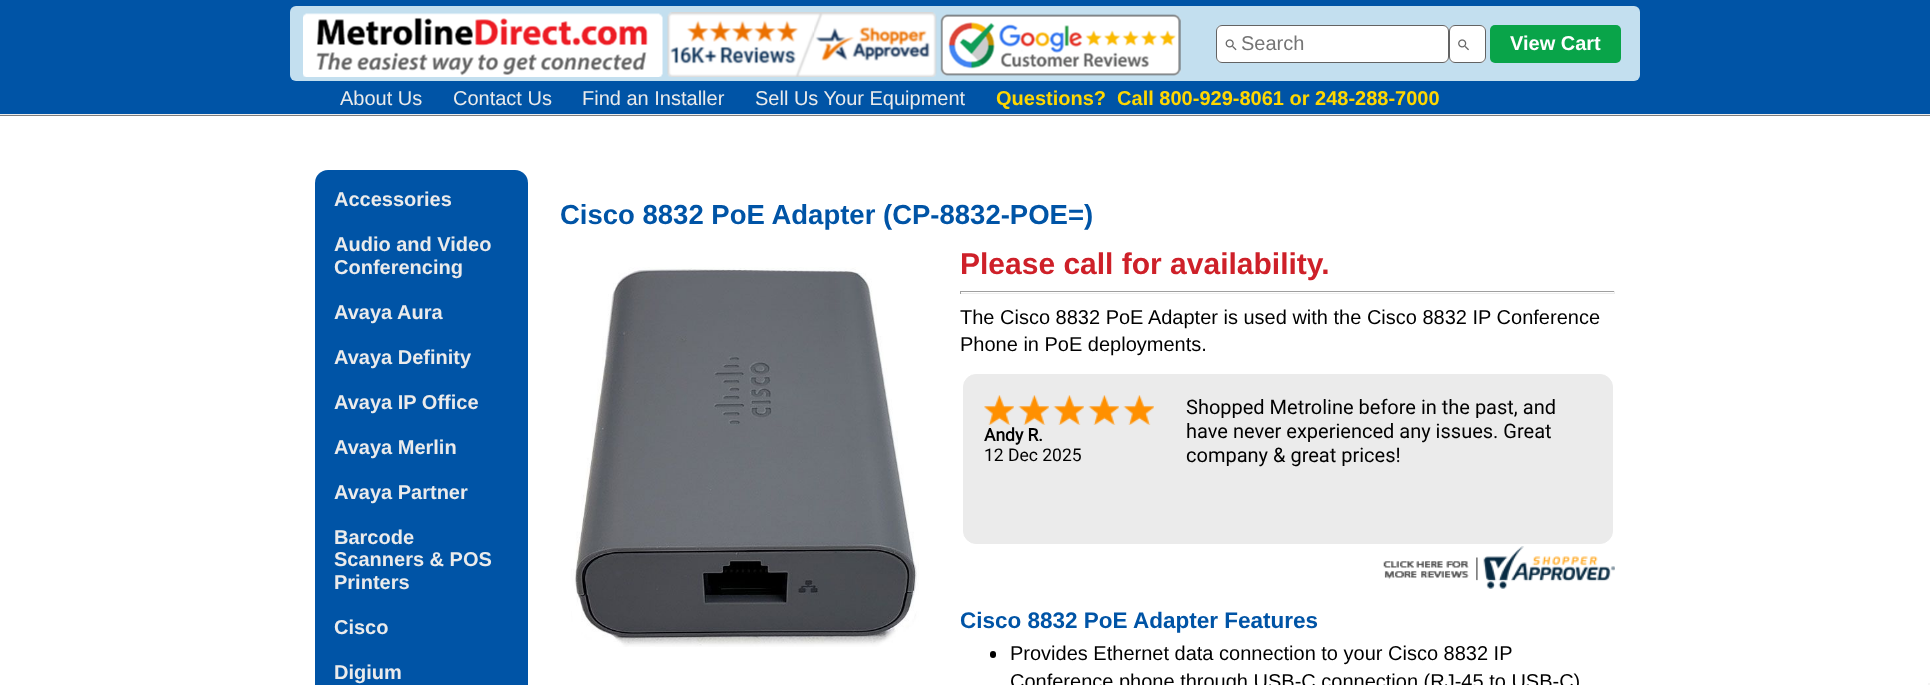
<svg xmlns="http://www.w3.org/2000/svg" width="1930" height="685">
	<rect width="100%" height="100%" fill="#FFFFFF" />
	<rect x="0" y="1" width="1930" height="115" fill="#7D7D7D" filter="blur(0.5px)" />
	<rect x="0" y="0" width="1930" height="114" fill="#0054A6" />
	<rect x="0" y="114" width="1930" height="1" fill="#EBEBEB" />
	<rect x="290" y="6" width="1350" height="75" rx="6" fill="#C3DFEF" />
	<image x="303" y="13" width="360" height="64" href="assets/img1.png" />
	<image x="667" y="12" width="270" height="65" href="assets/img2.png" />
	<image x="940" y="14" width="241" height="62" href="assets/img3.png" />
	<rect x="1216" y="25" width="233" height="38" rx="6" fill="#FFFFFF" />
	<image x="1225" y="39" width="12" height="12" href="assets/img4.png" />
	<rect x="1216.5" y="25.5" width="232" height="37" rx="5.5" fill="none" stroke="#636363" />
	<text x="1241" y="50" font-family="Liberation Sans" font-size="20" fill="#757575">Search</text>
	<rect x="1449" y="25" width="37" height="38" rx="6" fill="#FFFFFF" />
	<image x="1458" y="39" width="11" height="12" href="assets/img5.png" />
	<rect x="1449.5" y="25.5" width="36" height="37" rx="5.5" fill="none" stroke="#636363" />
	<rect x="1490" y="25" width="131" height="38" rx="5" fill="#09A449" />
	<text x="1510" y="50" font-family="Liberation Sans" font-size="20" font-weight="700" fill="#FFFFFF">View Cart</text>
	<g font-family="Liberation Sans" font-size="20" fill="#EBEBEB">
		<text x="340" y="105">About Us</text>
		<text x="453" y="105">Contact Us</text>
		<text x="582" y="105">Find an Installer</text>
		<text x="755" y="105">Sell Us Your Equipment</text>
	</g>
	<text x="996" y="105" font-family="Liberation Sans" font-size="20" font-weight="700" fill="#FFD700" xml:space="preserve">Questions?  Call 800-929-8061 or 248-288-7000</text>
	<rect x="315" y="170" width="213" height="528" rx="13" fill="#0054A6" />
	<g font-family="Liberation Sans" font-size="20" font-weight="700" fill="#EBEBEB">
		<text x="334" y="206">Accessories</text>
		<text x="334" y="251">Audio and Video</text>
		<text x="334" y="274">Conferencing</text>
		<text x="334" y="319">Avaya Aura</text>
		<text x="334" y="364">Avaya Definity</text>
		<text x="334" y="409">Avaya IP Office</text>
		<text x="334" y="454">Avaya Merlin</text>
		<text x="334" y="499">Avaya Partner</text>
		<text x="334" y="544">Barcode</text>
		<text x="334" y="566">Scanners &amp; POS</text>
		<text x="334" y="589">Printers</text>
		<text x="334" y="634">Cisco</text>
		<text x="334" y="679">Digium</text>
	</g>
	<text x="560" y="224" font-family="Liberation Sans" font-size="27.5" font-weight="700" fill="#0054A6">Cisco 8832 PoE Adapter (CP-8832-POE=)</text>
	<image x="571" y="267" width="348" height="380" href="assets/img6.png" />
	<text x="960" y="274" font-family="Liberation Sans" font-size="30" font-weight="700" fill="#CE2029">Please call for availability.</text>
	<rect x="960" y="291" width="655" height="1" fill="#9F9F9F" />
	<rect x="1614" y="291" width="1" height="3" fill="#EEEEEE" />
	<rect x="960" y="293" width="655" height="1" fill="#EEEEEE" />
	<rect x="960" y="291" width="1" height="3" fill="#9F9F9F" />
	<g font-family="Liberation Sans" font-size="20" fill="#000000">
		<text x="960" y="324">The Cisco 8832 PoE Adapter is used with the Cisco 8832 IP Conference</text>
		<text x="960" y="351">Phone in PoE deployments.</text>
	</g>
	<rect x="963.5" y="374.5" width="649" height="169" rx="12.5" fill="#EBEBEB" stroke="#EBEBEB" />
	<image x="984" y="395" width="30" height="30" href="assets/img7.png" />
	<image x="1018" y="395" width="31" height="30" href="assets/img8.png" />
	<image x="1053" y="395" width="31" height="30" href="assets/img9.png" />
	<image x="1088" y="395" width="31" height="30" href="assets/img10.png" />
	<image x="1123" y="395" width="31" height="30" href="assets/img10.png" />
	<text x="984" y="441" font-family="Roboto" font-size="17.5" font-weight="700" fill="#000000">Andy R.</text>
	<text x="984" y="461" font-family="Roboto" font-size="17.5" fill="#000000">12 Dec 2025</text>
	<g font-family="Roboto" font-size="20" fill="#000000">
		<text x="1186" y="414">Shopped Metroline before in the past, and</text>
		<text x="1186" y="438">have never experienced any issues. Great</text>
		<text x="1186" y="462">company &amp; great prices!</text>
	</g>
	<image x="1383" y="546" width="232" height="43" href="assets/img11.png" />
	<text x="960" y="628" font-family="Liberation Sans" font-size="22.5" font-weight="700" fill="#0054A6">Cisco 8832 PoE Adapter Features</text>
	<rect x="990" y="651" width="6" height="7" rx="3" fill="#000000" />
	<g font-family="Liberation Sans" font-size="20" fill="#000000">
		<text x="1010" y="660">Provides Ethernet data connection to your Cisco 8832 IP</text>
		<text x="1010" y="688">Conference phone through USB-C connection (RJ-45 to USB-C)</text>
	</g>
	<rect x="1928" y="683" width="2" height="2" fill="#F5F5F5" />
</svg>
